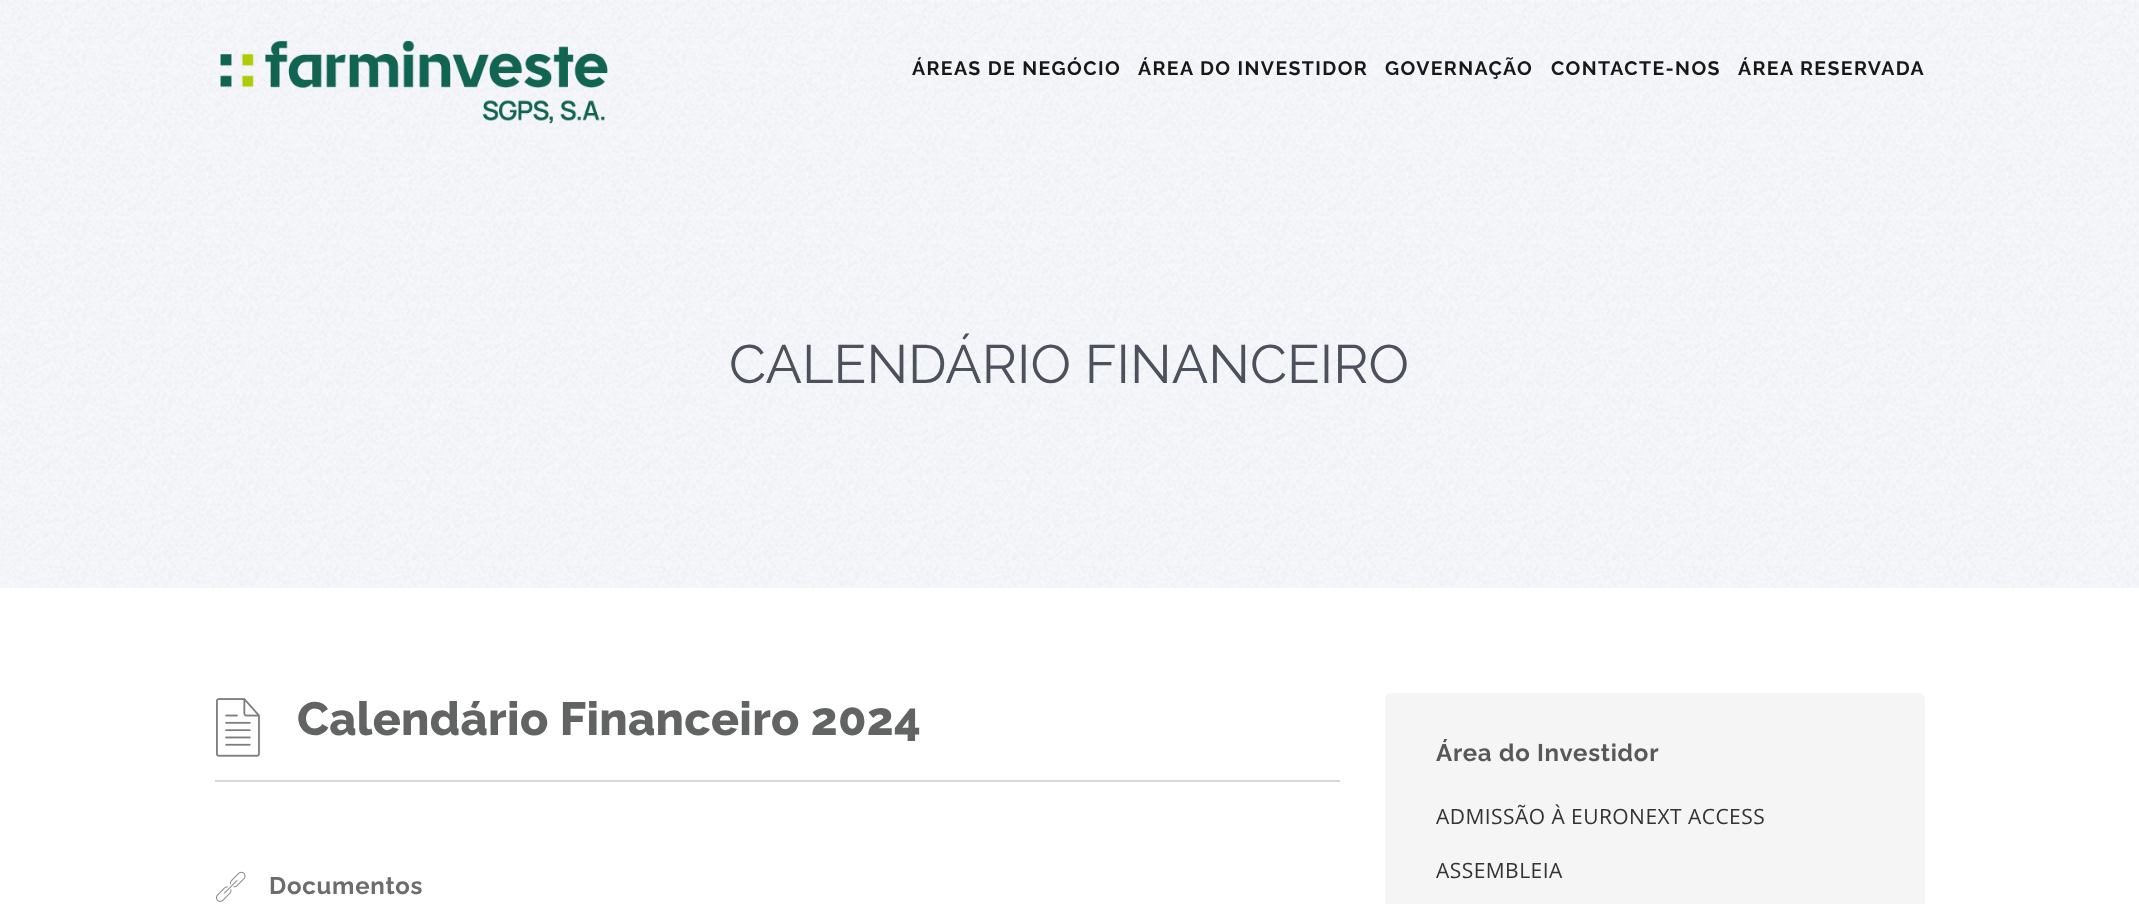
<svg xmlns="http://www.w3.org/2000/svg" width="2139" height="904">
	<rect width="100%" height="100%" fill="#FFFFFF" />
	<image x="0" y="0" width="2139" height="588" href="assets/img2.png" />
	<image x="220" y="40" width="388" height="84" href="assets/img1.png" />
	<g font-family="Raleway" font-size="19.5" font-weight="700" letter-spacing="1.4" fill="#181818">
		<text x="912" y="75">ÁREAS DE NEGÓCIO</text>
		<text x="1138" y="75">ÁREA DO INVESTIDOR</text>
		<text x="1385" y="75">GOVERNAÇÃO</text>
		<text x="1551" y="75">CONTACTE-NOS</text>
		<text x="1738" y="75">ÁREA RESERVADA</text>
	</g>
	<text x="729" y="383" font-family="Raleway" font-size="54" fill="#4D515C">CALENDÁRIO FINANCEIRO</text>
	<rect x="215" y="780" width="1125" height="2" fill="#D7D7D7" />
	<image x="216" y="698" width="44" height="59" href="assets/img3.png" />
	<text x="297" y="735" font-family="Raleway" font-size="46.5" font-weight="800" letter-spacing="0.3" fill="#626363">Calendário Financeiro 2024</text>
	<image x="216" y="871" width="30" height="31" href="assets/img4.png" />
	<text x="269" y="894" font-family="Raleway" font-size="24" font-weight="700" letter-spacing="0.75" fill="#6C6C6C">Documentos</text>
	<rect x="1385" y="693" width="540" height="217" rx="6" fill="#F5F5F5" />
	<text x="1436" y="761" font-family="Raleway" font-size="24" font-weight="700" letter-spacing="0.75" fill="#585858">Área do Investidor</text>
	<g font-family="Open Sans" font-size="21" letter-spacing="0.45" fill="#333333">
		<text x="1436" y="824">ADMISSÃO À EURONEXT ACCESS</text>
		<text x="1436" y="878">ASSEMBLEIA</text>
	</g>
</svg>
